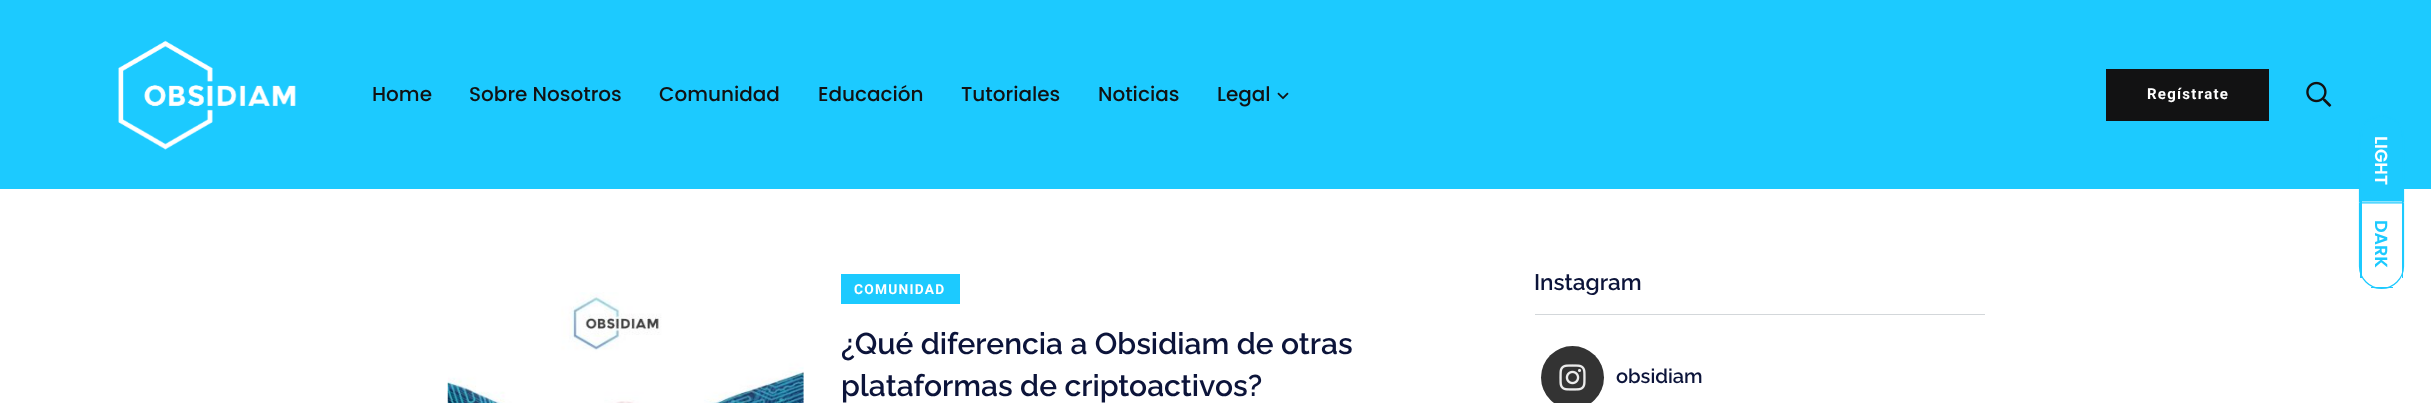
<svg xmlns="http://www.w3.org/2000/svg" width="2431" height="403">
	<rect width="100%" height="100%" fill="#FFFFFF" />
	<rect x="0" y="0" width="2431" height="189" fill="#1CCAFF" />
	<image x="118" y="40" width="178" height="110" href="assets/img1.png" />
	<g font-family="Poppins" font-size="20" font-weight="500" fill="#121213">
		<text x="372" y="101">Home</text>
		<text x="469" y="101">Sobre Nosotros</text>
		<text x="659" y="101">Comunidad</text>
		<text x="818" y="101">Educación</text>
		<text x="961" y="101">Tutoriales</text>
		<text x="1098" y="101">Noticias</text>
		<text x="1217" y="101">Legal</text>
	</g>
	<image x="1277" y="92" width="12" height="8" href="assets/img2.png" />
	<rect x="2106" y="69" width="163" height="52" fill="#121213" />
	<text x="2147" y="99" font-family="Roboto" font-size="15" font-weight="700" letter-spacing="1.25" fill="#FFFFFF">Regístrate</text>
	<image x="2306" y="81" width="26" height="26" href="assets/img3.png" />
	<image x="447" y="292" width="357" height="111" href="assets/img4.png" />
	<rect x="841" y="274" width="119" height="30" fill="#1CCAFF" />
	<text x="854" y="294" font-family="Roboto" font-size="13.75" font-weight="700" letter-spacing="1.25" fill="#FFFFFF">COMUNIDAD</text>
	<g font-family="Raleway" font-size="30" font-weight="600" fill="#0C143A">
		<text x="841" y="354">¿Qué diferencia a Obsidiam de otras</text>
		<text x="841" y="396">plataformas de criptoactivos?</text>
	</g>
	<rect x="1535" y="314" width="450" height="1" fill="#D3D7DA" />
	<text x="1534" y="290" font-family="Raleway" font-size="22.5" font-weight="600" fill="#0C143A">Instagram</text>
	<circle cx="1572.5" cy="377.5" r="31.5" fill="#333333" />
	<image x="1559" y="364" width="27" height="27" href="assets/img5.png" />
	<text x="1616" y="383" font-family="Raleway" font-size="20" font-weight="600" fill="#0C143A">obsidiam</text>
	<path d="M2402 137V201H2362V137C2362 126 2371 117 2382 117C2393 117 2402 126 2402 137Z" fill="#1CCAFF" />
	<path d="M2403.5 137V202H2359.5V137C2359.5 125 2369.5 115.5 2381.5 115.5C2393.5 115.5 2403.5 125 2403.5 137Z" fill="none" stroke="#1CCAFF" stroke-width="1.2" />
	<rect x="2402" y="189" width="1" height="13" fill="#1CCAFF" />
	<rect x="2360" y="189" width="2" height="13" fill="#1CCAFF" />
	<text x="2375" y="136" transform="rotate(90 2375 136)" font-family="Poppins" font-size="17.5" font-weight="600" fill="#FFFFFF">LIGHT</text>
	<path d="M2403.5 203V266.5C2403.5 278.5 2393.5 288.5 2381.5 288.5C2369.5 288.5 2359.5 278.5 2359.5 266.5V203Z" fill="none" stroke="#1CCAFF" stroke-width="1.2" />
	<rect x="2402" y="202" width="1" height="76" fill="#1CCAFF" />
	<rect x="2371" y="287" width="22" height="1" fill="#1CCAFF" />
	<rect x="2360" y="202" width="2" height="76" fill="#1CCAFF" />
	<text x="2375" y="220" transform="rotate(90 2375 220)" font-family="Poppins" font-size="17.5" font-weight="600" fill="#1CCAFF">DARK</text>
</svg>
